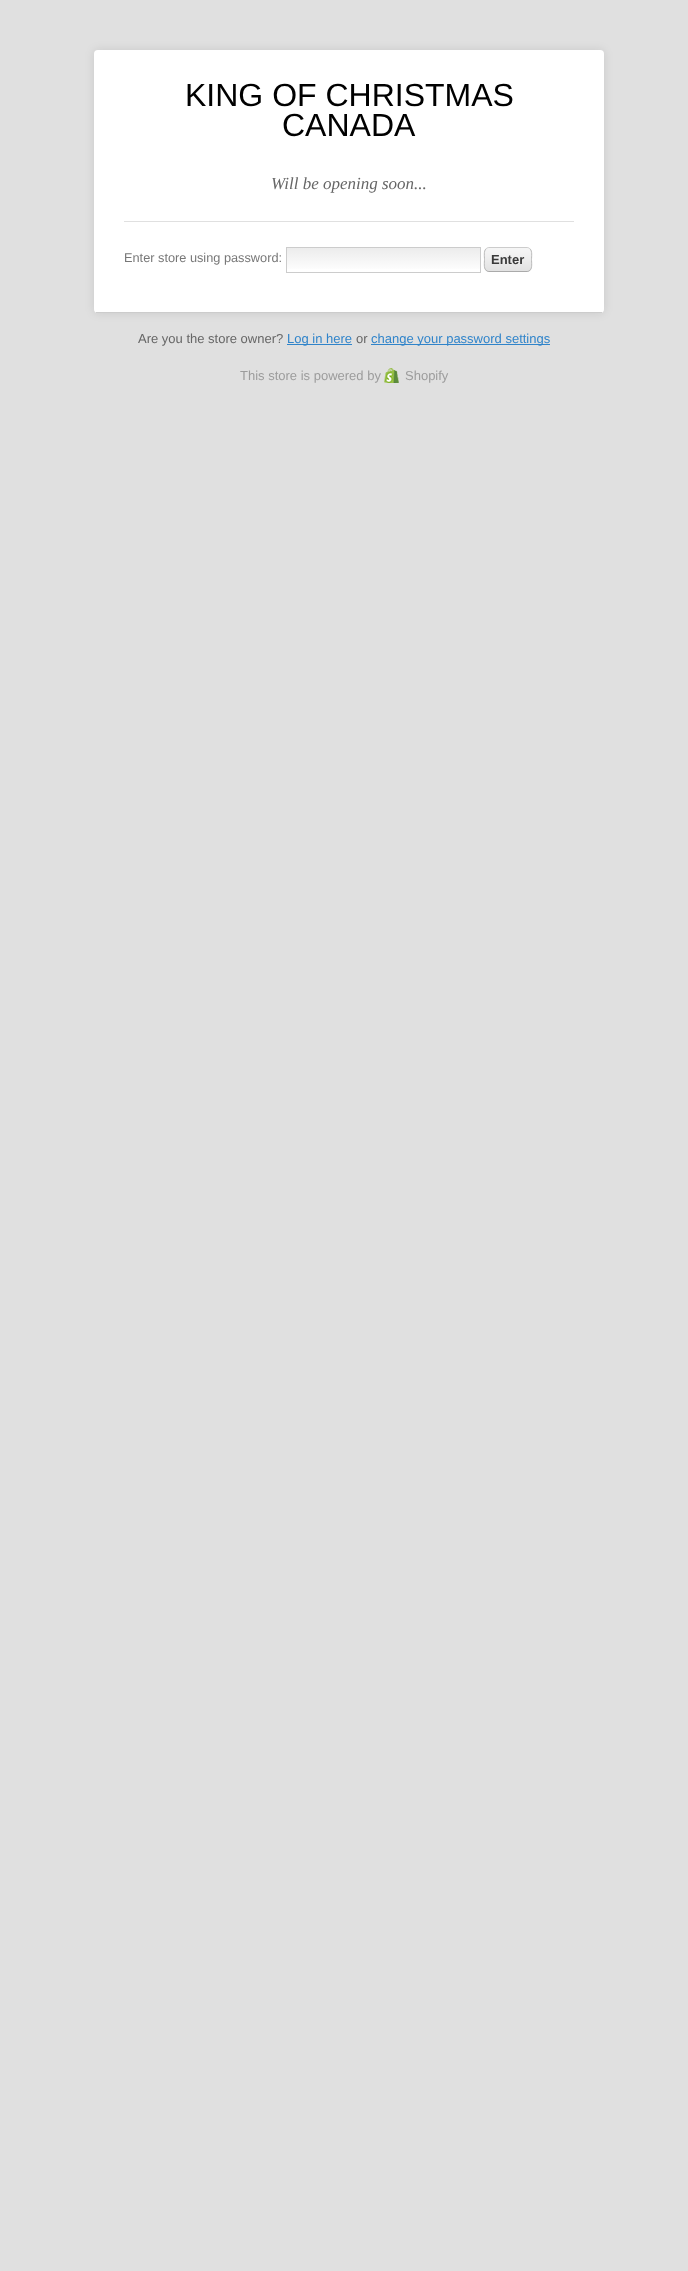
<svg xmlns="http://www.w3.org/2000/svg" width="688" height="2271">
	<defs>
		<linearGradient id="g1" gradientUnits="userSpaceOnUse" x1="287" y1="248" x2="287" y2="272"><stop offset="0" stop-color="#ECECEC" /><stop offset="1" stop-color="#FFFFFF" /></linearGradient>
	</defs>
	<rect width="100%" height="100%" fill="#E0E0E0" />
	<rect x="94" y="50" width="510" height="263" rx="4" fill="#000000" fill-opacity="0.1" filter="blur(5px)" />
	<rect x="94" y="50" width="510" height="263" rx="4" fill="#FFFFFF" />
	<rect x="96" y="312" width="506" height="1" fill="#CCCCCC" />
	<g font-family="Liberation Sans" font-size="32" fill="#000000">
		<text x="185" y="106">KING OF CHRISTMAS</text>
		<text x="282" y="136">CANADA</text>
	</g>
	<text x="271" y="189" font-family="Liberation Serif" font-size="17" font-style="italic" fill="#666666">Will be opening soon...</text>
	<rect x="124" y="221" width="450" height="1" fill="#E0E0E0" />
	<text x="124" y="262" font-family="Liberation Sans" font-size="12.75" fill="#777777">Enter store using password:</text>
	<rect x="287" y="248" width="193" height="21" fill="url(#g1)" />
	<rect x="286.5" y="247.5" width="194" height="25" fill="none" stroke="#CCCCCC" />
	<image x="484" y="248" width="48" height="24" href="assets/img1.png" />
	<path d="M486 249C486.5 248 488 247.5 489 247.5H527C528 247.5 529.5 248 530 249" fill="none" stroke="#CCCCCC" />
	<path d="M530 249C532.5 251 531.5 256.5 531.5 259.5C531.5 262.5 532.5 268 530 270" fill="none" stroke="#BBBBBB" />
	<path d="M530 270C529.5 271 528 271.5 527 271.5H489C488 271.5 486.5 271 486 270" fill="none" stroke="#AAAAAA" />
	<path d="M486 270C483.5 268 484.5 262.5 484.5 259.5C484.5 256.5 483.5 251 486 249" fill="none" stroke="#BBBBBB" />
	<text x="491" y="264" font-family="Liberation Sans" font-size="13" font-weight="700" fill="#3A3A3A">Enter</text>
	<text x="138" y="343" font-family="Liberation Sans" font-size="13" fill="#666666">Are you the store owner?</text>
	<rect x="287" y="344" width="65" height="1" fill="#3084CA" />
	<text x="287" y="343" font-family="Liberation Sans" font-size="13" fill="#3084CA">Log in here</text>
	<text x="356" y="343" font-family="Liberation Sans" font-size="13" fill="#666666">or</text>
	<rect x="371" y="344" width="179" height="1" fill="#3084CA" />
	<text x="371" y="343" font-family="Liberation Sans" font-size="13" fill="#3084CA">change your password settings</text>
	<text x="240" y="380" font-family="Liberation Sans" font-size="13" fill="#9C9C9C">This store is powered by</text>
	<image x="384" y="368" width="15" height="15" href="assets/img2.png" />
	<text x="405" y="380" font-family="Liberation Sans" font-size="13" fill="#9C9C9C">Shopify</text>
</svg>
